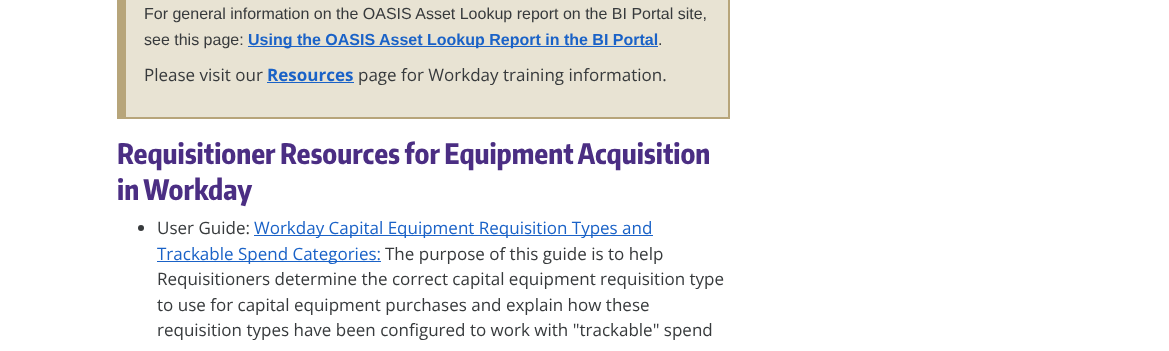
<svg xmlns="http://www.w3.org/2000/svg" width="1169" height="351">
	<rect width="100%" height="100%" fill="#FFFFFF" />
	<rect x="126" y="0" width="602" height="117" fill="#E8E3D3" />
	<rect x="728" y="0" width="2" height="119" fill="#B7A57A" />
	<rect x="126" y="117" width="604" height="2" fill="#B7A57A" />
	<rect x="117" y="0" width="9" height="119" fill="#B7A57A" />
	<g font-family="Liberation Sans" font-size="16" fill="#373A3C">
		<text x="144" y="19">For general information on the OASIS Asset Lookup report on the BI Portal site,</text>
		<text x="144" y="45">see this page:</text>
	</g>
	<rect x="248" y="46" width="410" height="1" fill="#1A62C7" />
	<text x="248" y="45" font-family="Liberation Sans" font-size="16" font-weight="700" fill="#1A62C7">Using the OASIS Asset Lookup Report in the BI Portal</text>
	<text x="658" y="45" font-family="Liberation Sans" font-size="16" fill="#373A3C">.</text>
	<text x="144" y="81" font-family="Open Sans" font-size="17" fill="#373A3C">Please visit our</text>
	<text x="267" y="81" font-family="Open Sans" font-size="17" font-weight="700" fill="#1A62C7">Resources</text>
	<rect x="267" y="82" width="87" height="1" fill="#1A62C7" />
	<text x="358" y="81" font-family="Open Sans" font-size="17" fill="#373A3C">page for Workday training information.</text>
	<g font-family="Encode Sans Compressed" font-size="28" font-weight="800" fill="#4B2E83">
		<text x="117" y="164">Requisitioner Resources for Equipment Acquisition</text>
		<text x="117" y="200">in Workday</text>
	</g>
	<circle cx="141" cy="228" r="3" fill="#373A3C" />
	<text x="157" y="234" font-family="Open Sans" font-size="17" fill="#373A3C">User Guide:</text>
	<rect x="254" y="235" width="399" height="1" fill="#1A62C7" />
	<text x="254" y="234" font-family="Open Sans" font-size="17" fill="#1A62C7">Workday Capital Equipment Requisition Types and</text>
	<rect x="157" y="261" width="224" height="1" fill="#1A62C7" />
	<text x="157" y="260" font-family="Open Sans" font-size="17" fill="#1A62C7">Trackable Spend Categories:</text>
	<g font-family="Open Sans" font-size="17" fill="#373A3C">
		<text x="385" y="260">The purpose of this guide is to help</text>
		<text x="157" y="285">Requisitioners determine the correct capital equipment requisition type</text>
		<text x="157" y="311">to use for capital equipment purchases and explain how these</text>
		<text x="157" y="336">requisition types have been configured to work with "trackable" spend</text>
	</g>
</svg>
